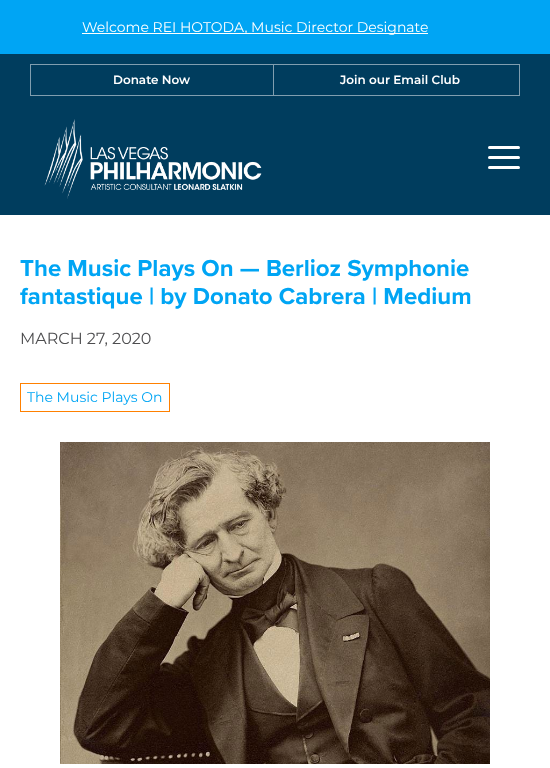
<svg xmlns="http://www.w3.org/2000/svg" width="550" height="768">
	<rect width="100%" height="100%" fill="#FFFFFF" />
	<rect x="0" y="54" width="550" height="161" fill="#003D5E" />
	<rect x="0" y="0" width="550" height="54" fill="#00A5F4" />
	<rect x="82" y="33" width="346" height="1" fill="#FFFFFF" />
	<text x="82" y="32" font-family="Montserrat" font-size="14" fill="#FFFFFF">Welcome REI HOTODA, Music Director Designate</text>
	<rect x="30.5" y="64.5" width="489" height="31" fill="none" stroke="#809EAF" />
	<text x="113" y="84" font-family="Montserrat" font-size="12" font-weight="600" fill="#FFFFFF">Donate Now</text>
	<rect x="273" y="65" width="1" height="30" fill="#809EAF" />
	<text x="340" y="84" font-family="Montserrat" font-size="12" font-weight="600" fill="#FFFFFF">Join our Email Club</text>
	<image x="44" y="119" width="218" height="80" href="assets/img1.png" />
	<rect x="488" y="156" width="32" height="3" rx="1.5" fill="#FFFFFF" />
	<rect x="488" y="146" width="32" height="3" rx="1.5" fill="#FFFFFF" />
	<rect x="488" y="166" width="32" height="3" rx="1.5" fill="#FFFFFF" />
	<g font-family="Proxima Nova" font-size="24" font-weight="700" fill="#00A5F4">
		<text x="20" y="276">The Music Plays On — Berlioz Symphonie</text>
		<text x="20" y="304">fantastique | by Donato Cabrera | Medium</text>
	</g>
	<text x="20" y="344" font-family="Montserrat" font-size="16" fill="#4D4D4F">MARCH 27, 2020</text>
	<rect x="20.5" y="383.5" width="149" height="28" fill="none" stroke="#FF8000" />
	<text x="27" y="402" font-family="Montserrat" font-size="14" fill="#00A5F4">The Music Plays On</text>
	<image x="60" y="442" width="430" height="322" href="assets/img2.png" />
</svg>
